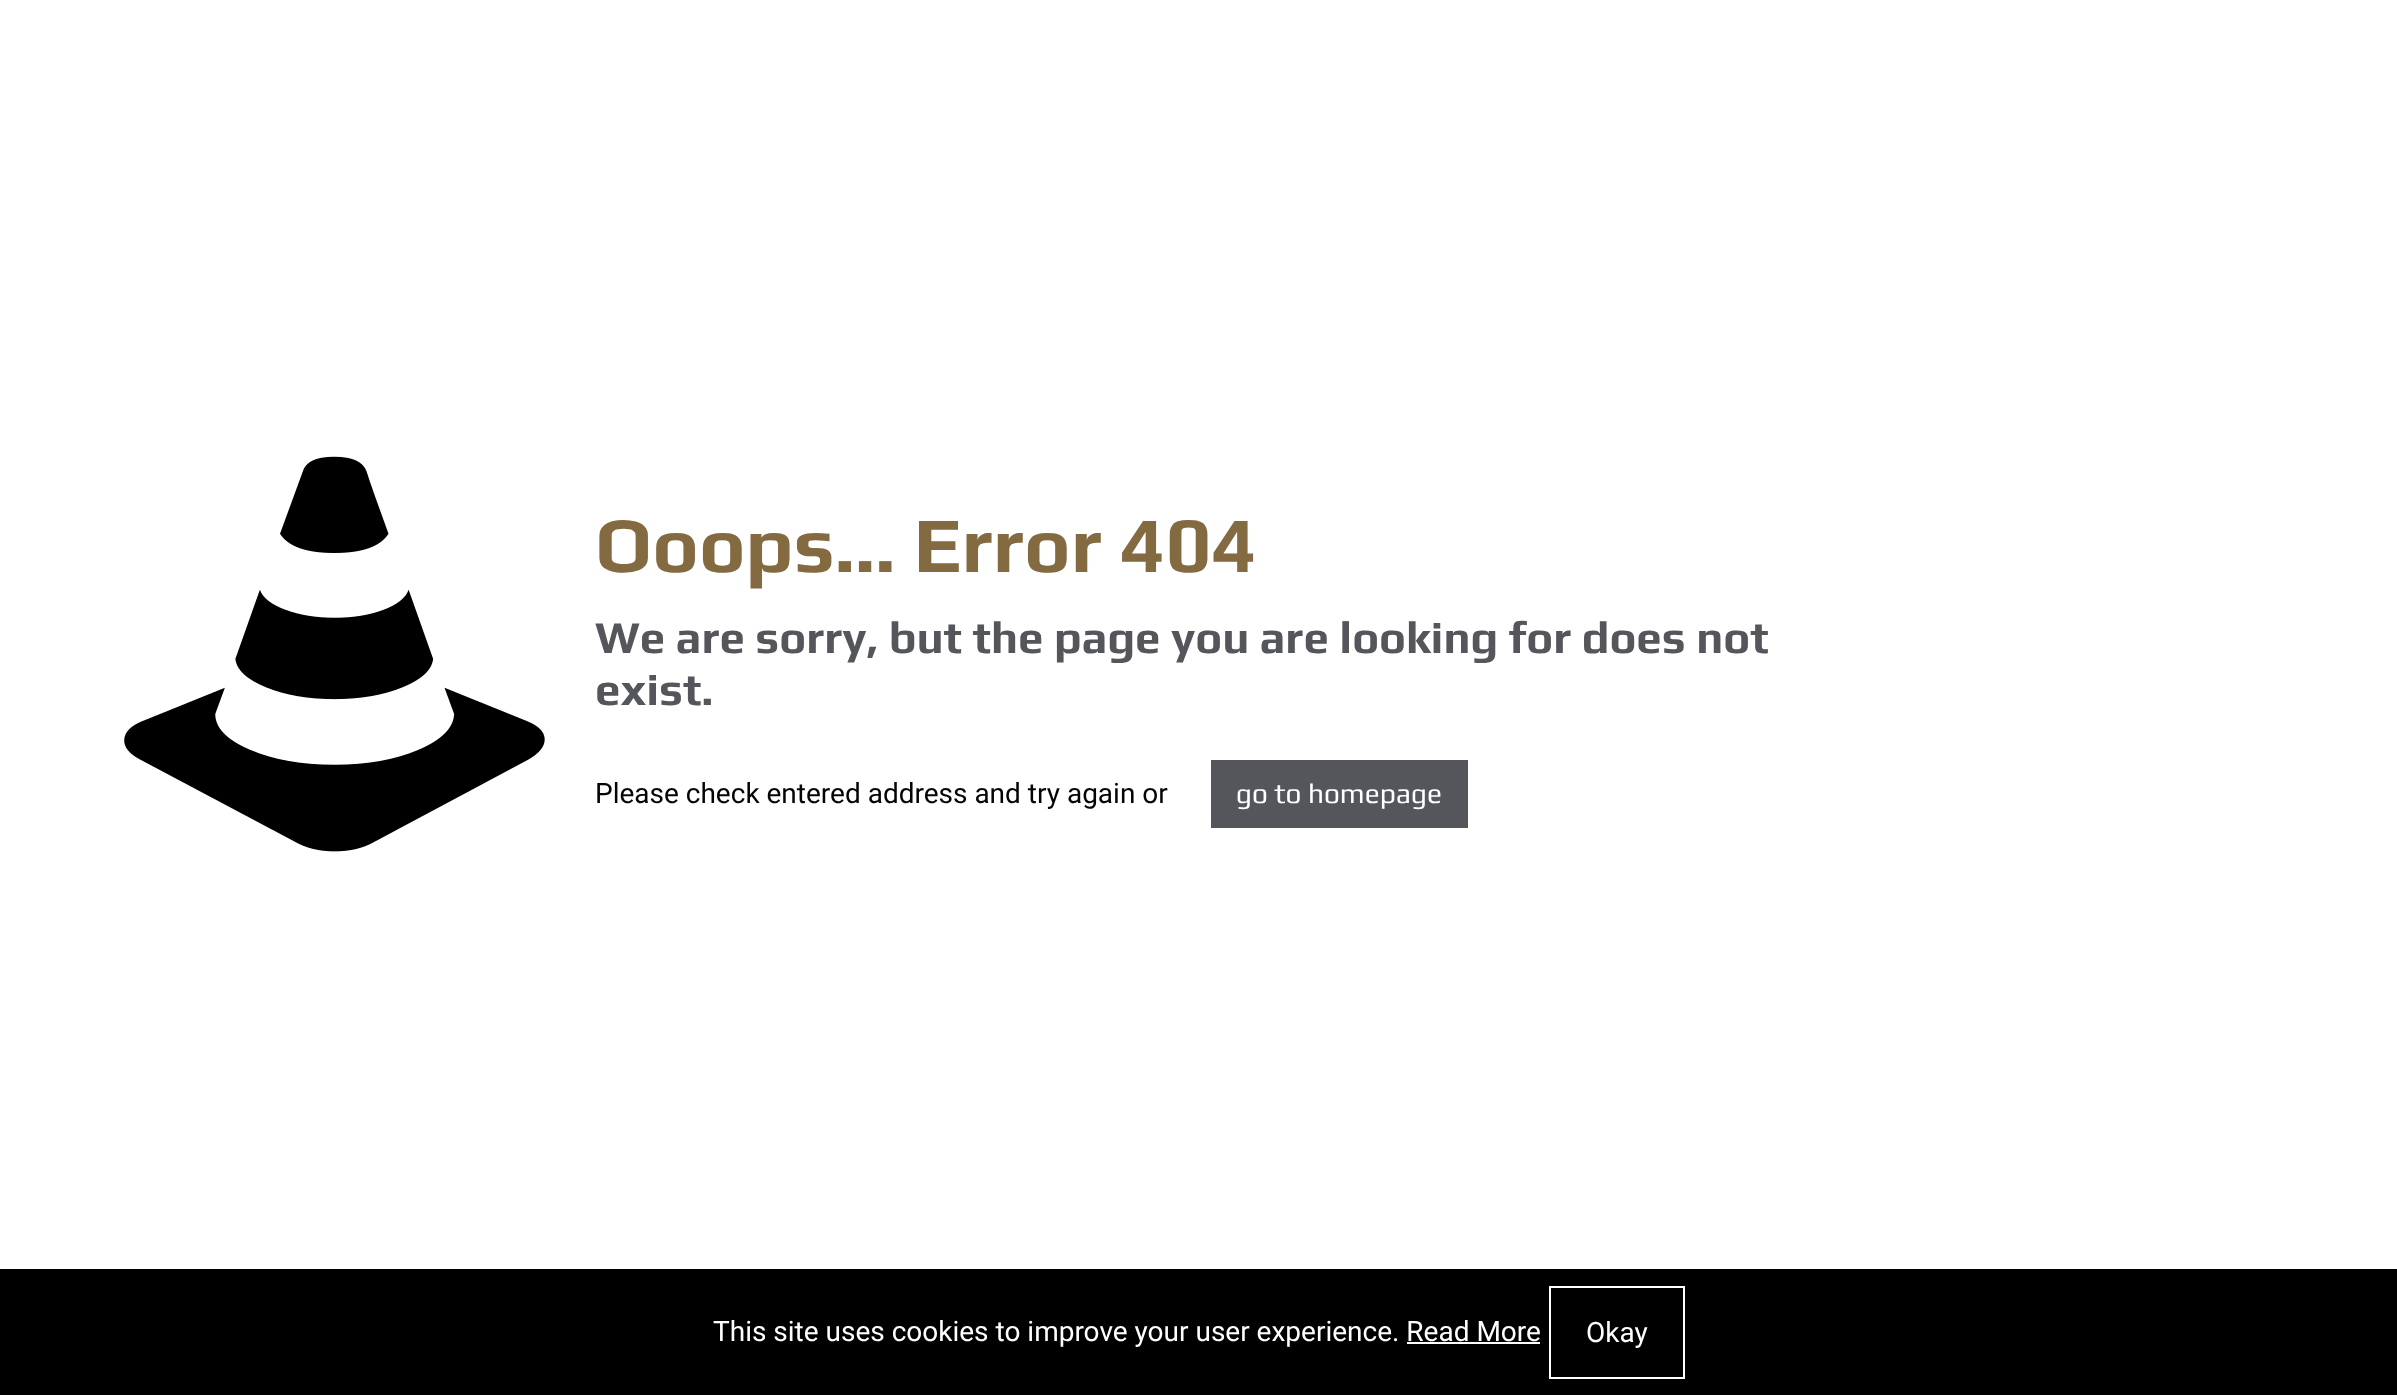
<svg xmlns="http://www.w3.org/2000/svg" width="2397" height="1395">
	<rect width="100%" height="100%" fill="#FFFFFF" />
	<image x="124" y="456" width="421" height="396" href="assets/img1.png" />
	<text x="595" y="572" font-family="Play" font-size="78.75" font-weight="700" fill="#846A41">Ooops... Error 404</text>
	<g font-family="Play" font-size="45.5" font-weight="700" fill="#54565B">
		<text x="595" y="653">We are sorry, but the page you are looking for does not</text>
		<text x="595" y="705">exist.</text>
	</g>
	<text x="595" y="803" font-family="Roboto" font-size="28" fill="#050405">Please check entered address and try again or</text>
	<rect x="1211" y="760" width="257" height="68" fill="#54565B" />
	<text x="1236" y="803" font-family="Play" font-size="28" fill="#FFFFFF">go to homepage</text>
	<rect x="0" y="1269" width="2397" height="126" fill="#000000" />
	<text x="713" y="1341" font-family="Roboto" font-size="28" fill="#FFFFFF">This site uses cookies to improve your user experience. Read More</text>
	<rect x="1407" y="1342" width="133" height="2" fill="#FFFFFF" />
	<rect x="1550" y="1287" width="134" height="91" fill="none" stroke="#FFFFFF" stroke-width="2" />
	<text x="1586" y="1342" font-family="Roboto" font-size="28" fill="#FFFFFF">Okay</text>
</svg>
